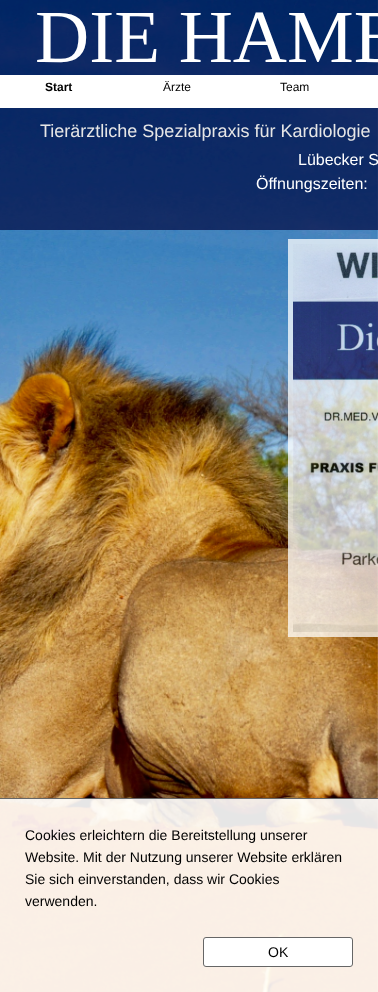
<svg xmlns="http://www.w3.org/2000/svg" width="378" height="992">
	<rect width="100%" height="100%" fill="#FFFFFF" />
	<image x="0" y="0" width="378" height="992" href="assets/img1.png" />
	<rect x="0" y="0" width="378" height="230" fill="#010842" fill-opacity="0.7" />
	<text x="35" y="62" font-family="Liberation Serif" font-size="75" fill="#FFFFFF">DIE HAMB</text>
	<rect x="0" y="75" width="378" height="33" fill="#FFFFFF" />
	<text x="45" y="91" font-family="Liberation Sans" font-size="12" font-weight="700" fill="#000000">Start</text>
	<g font-family="Liberation Sans" font-size="12" fill="#000000">
		<text x="163" y="91">Ärzte</text>
		<text x="280" y="91">Team</text>
	</g>
	<text x="40" y="137" font-family="Liberation Sans" font-size="18" fill="#E6E6E6">Tierärztliche Spezialpraxis für Kardiologie</text>
	<g font-family="Liberation Sans" font-size="16" fill="#FFFFFF">
		<text x="298" y="165">Lübecker S</text>
		<text x="256" y="189">Öffnungszeiten:</text>
	</g>
	<rect x="290.5" y="241.5" width="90" height="393" fill="none" stroke="#FFFFFF" stroke-opacity="0.75" stroke-width="5" />
	<image x="293" y="244" width="85" height="388" href="assets/img2.png" />
	<rect x="0" y="799" width="378" height="193" fill="#FFFFFF" fill-opacity="0.9" />
	<rect x="0" y="798" width="378" height="1" fill="#666666" />
	<g font-family="Liberation Sans" font-size="14" fill="#000000">
		<text x="25" y="840">Cookies erleichtern die Bereitstellung unserer</text>
		<text x="25" y="862">Website. Mit der Nutzung unserer Website erklären</text>
		<text x="25" y="884">Sie sich einverstanden, dass wir Cookies</text>
		<text x="25" y="906">verwenden.</text>
	</g>
	<rect x="203.5" y="937.5" width="149" height="29" rx="2.5" fill="#FFFFFF" stroke="#666666" />
	<text x="268" y="957" font-family="Liberation Sans" font-size="14" fill="#000000">OK</text>
</svg>
